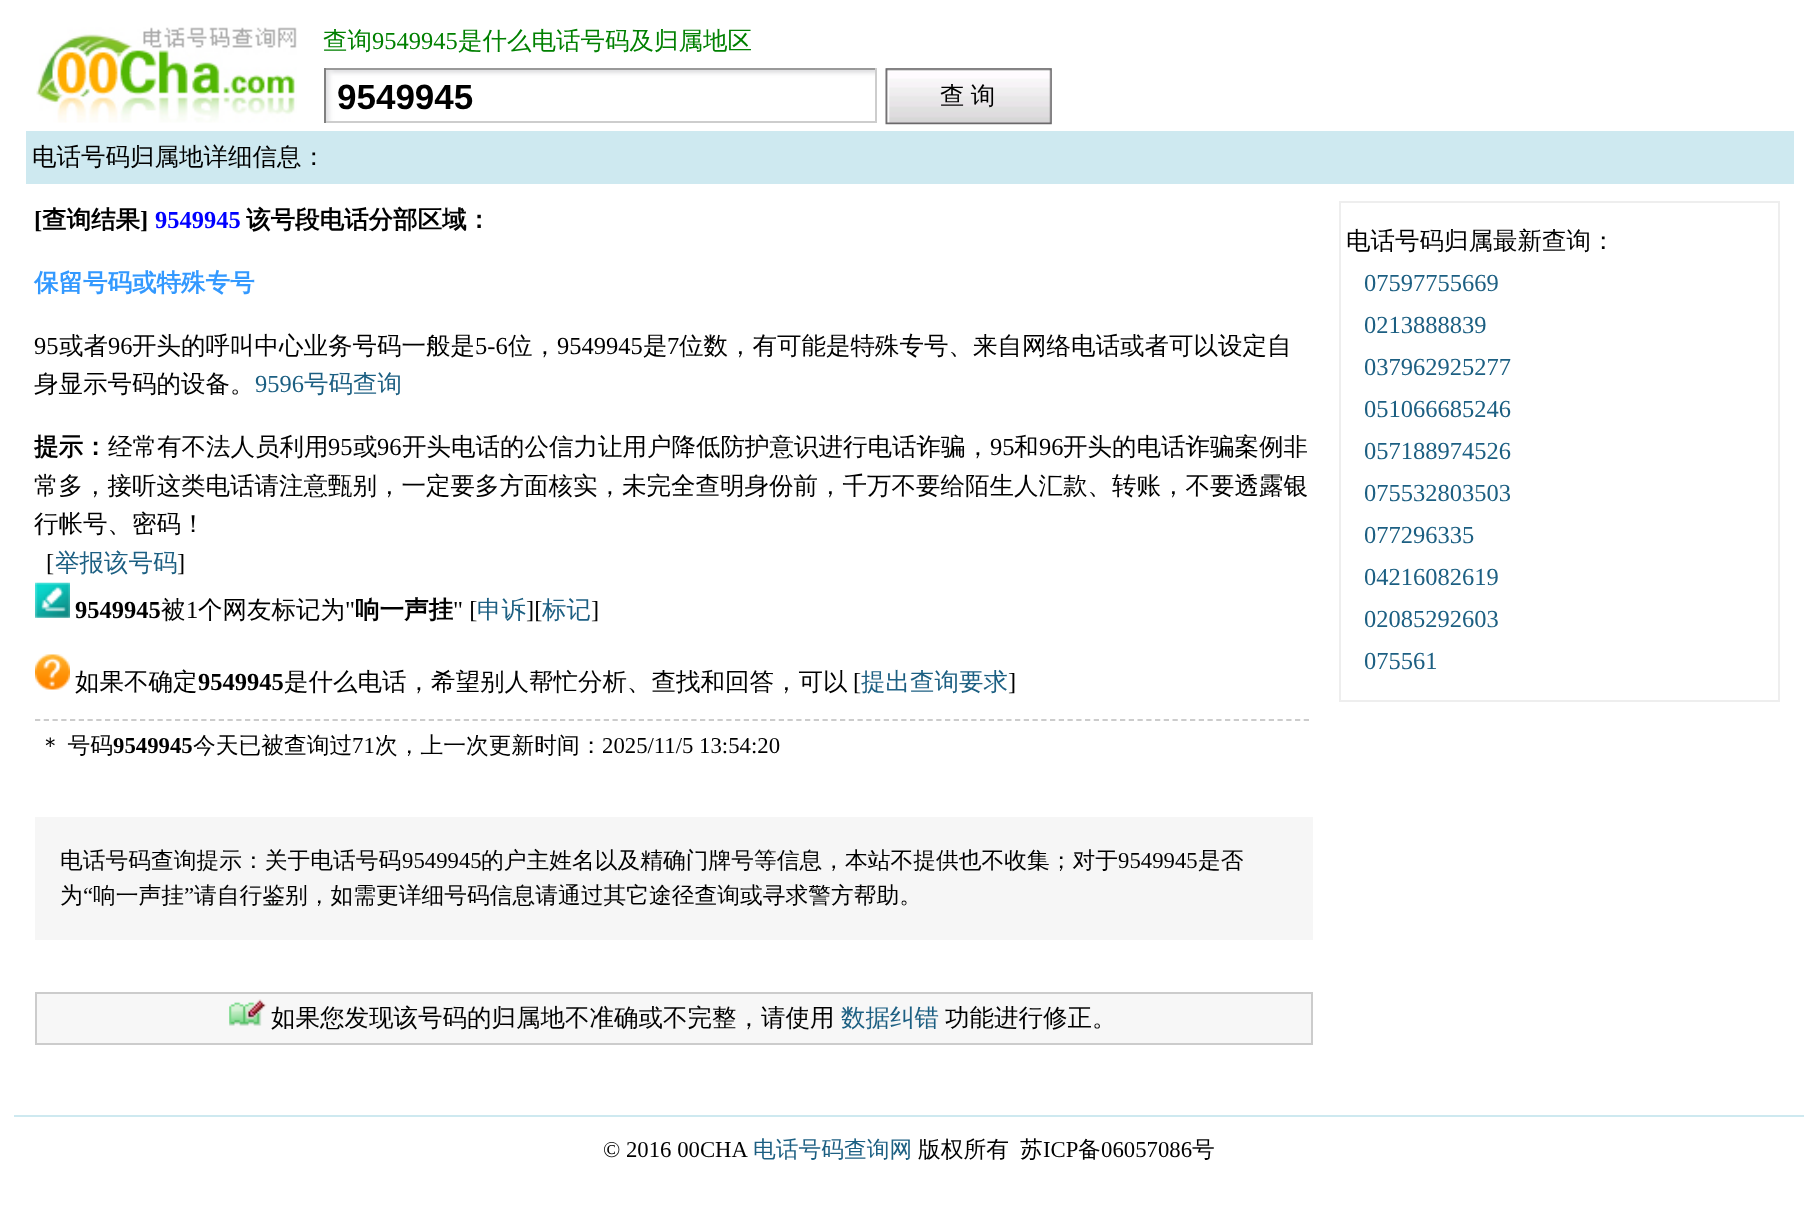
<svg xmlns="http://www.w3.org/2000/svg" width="1817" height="1208">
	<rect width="100%" height="100%" fill="#FFFFFF" />
	<image x="36" y="27" width="261" height="96" href="assets/img1.png" />
	<text x="323" y="49" font-family="WenQuanYi Zen Hei" font-size="24.5" font-weight="500" fill="#008000">查询</text>
	<text x="372" y="49" font-family="Liberation Serif" font-size="24.5" fill="#008000">9549945</text>
	<text x="458" y="49" font-family="WenQuanYi Zen Hei" font-size="24.5" font-weight="500" fill="#008000">是什么电话号码及归属地区</text>
	<image x="326" y="70" width="549" height="51" href="assets/img2.png" />
	<rect x="324" y="68" width="553" height="2" fill="#999999" />
	<rect x="875" y="68" width="2" height="55" fill="#CDCDCD" />
	<rect x="324" y="121" width="553" height="2" fill="#CDCDCD" />
	<rect x="324" y="68" width="2" height="55" fill="#808080" />
	<text x="337" y="109" font-family="Liberation Sans" font-size="35" font-weight="700" fill="#000000">9549945</text>
	<rect x="886" y="68" width="166" height="56" fill="#CCCCCC" />
	<image x="885" y="68" width="167" height="57" href="assets/img3.png" />
	<text x="940" y="104" word-spacing="-1" font-family="WenQuanYi Zen Hei" font-size="24.5" font-weight="500" fill="#000000">查 询</text>
	<rect x="26" y="131" width="1768" height="53" fill="#CEE9F0" />
	<text x="32" y="165" font-family="WenQuanYi Zen Hei" font-size="24.5" font-weight="500" fill="#000000">电话号码归属地详细信息：</text>
	<text x="34" y="228" font-family="Liberation Serif" font-size="24.5" font-weight="700" fill="#000000">[</text>
	<text x="42" y="228" font-family="WenQuanYi Zen Hei" font-size="24.5" font-weight="700" fill="#000000">查询结果</text>
	<text x="140" y="228" font-family="Liberation Serif" font-size="24.5" font-weight="700" fill="#000000">]</text>
	<text x="155" y="228" font-family="Liberation Serif" font-size="24.5" font-weight="700" fill="#0000FF">9549945</text>
	<text x="246" y="228" font-family="WenQuanYi Zen Hei" font-size="24.5" font-weight="700" fill="#000000">该号段电话分部区域：</text>
	<text x="34" y="291" font-family="WenQuanYi Zen Hei" font-size="24.5" font-weight="700" fill="#3399FF">保留号码或特殊专号</text>
	<text x="34" y="354" font-family="Liberation Serif" font-size="24.5" fill="#000000">95</text>
	<text x="59" y="354" font-family="WenQuanYi Zen Hei" font-size="24.5" font-weight="500" fill="#000000">或者</text>
	<text x="108" y="354" font-family="Liberation Serif" font-size="24.5" fill="#000000">96</text>
	<text x="132" y="354" font-family="WenQuanYi Zen Hei" font-size="24.5" font-weight="500" fill="#000000">开头的呼叫中心业务号码一般是</text>
	<text x="475" y="354" font-family="Liberation Serif" font-size="24.5" fill="#000000">5-6</text>
	<text x="508" y="354" font-family="WenQuanYi Zen Hei" font-size="24.5" font-weight="500" fill="#000000">位，</text>
	<text x="557" y="354" font-family="Liberation Serif" font-size="24.5" fill="#000000">9549945</text>
	<text x="643" y="354" font-family="WenQuanYi Zen Hei" font-size="24.5" font-weight="500" fill="#000000">是</text>
	<text x="667" y="354" font-family="Liberation Serif" font-size="24.5" fill="#000000">7</text>
	<g font-family="WenQuanYi Zen Hei" font-size="24.5" font-weight="500" fill="#000000">
		<text x="679" y="354">位数，有可能是特殊专号、来自网络电话或者可以设定自</text>
		<text x="34" y="392">身显示号码的设备。</text>
	</g>
	<text x="255" y="392" font-family="Liberation Serif" font-size="24.5" fill="#1C5F82">9596</text>
	<text x="304" y="392" font-family="WenQuanYi Zen Hei" font-size="24.5" font-weight="500" fill="#1C5F82">号码查询</text>
	<text x="34" y="455" font-family="WenQuanYi Zen Hei" font-size="24.5" font-weight="700" fill="#000000">提示：</text>
	<text x="108" y="455" font-family="WenQuanYi Zen Hei" font-size="24.5" font-weight="500" fill="#000000">经常有不法人员利用</text>
	<text x="328" y="455" font-family="Liberation Serif" font-size="24.5" fill="#000000">95</text>
	<text x="353" y="455" font-family="WenQuanYi Zen Hei" font-size="24.5" font-weight="500" fill="#000000">或</text>
	<text x="377" y="455" font-family="Liberation Serif" font-size="24.5" fill="#000000">96</text>
	<text x="402" y="455" font-family="WenQuanYi Zen Hei" font-size="24.5" font-weight="500" fill="#000000">开头电话的公信力让用户降低防护意识进行电话诈骗，</text>
	<text x="990" y="455" font-family="Liberation Serif" font-size="24.5" fill="#000000">95</text>
	<text x="1014" y="455" font-family="WenQuanYi Zen Hei" font-size="24.5" font-weight="500" fill="#000000">和</text>
	<text x="1039" y="455" font-family="Liberation Serif" font-size="24.5" fill="#000000">96</text>
	<g font-family="WenQuanYi Zen Hei" font-size="24.5" font-weight="500" fill="#000000">
		<text x="1063" y="455">开头的电话诈骗案例非</text>
		<text x="34" y="494">常多，接听这类电话请注意甄别，一定要多方面核实，未完全查明身份前，千万不要给陌生人汇款、转账，不要透露银</text>
		<text x="34" y="532">行帐号、密码！</text>
	</g>
	<text x="46" y="571" font-family="Liberation Serif" font-size="24.5" fill="#000000">[</text>
	<text x="55" y="571" font-family="WenQuanYi Zen Hei" font-size="24.5" font-weight="500" fill="#1C5F82">举报该号码</text>
	<text x="177" y="571" font-family="Liberation Serif" font-size="24.5" fill="#000000">]</text>
	<image x="35" y="582" width="35" height="36" href="assets/img4.png" />
	<text x="75" y="618" font-family="Liberation Serif" font-size="24.5" font-weight="700" fill="#000000">9549945</text>
	<text x="161" y="618" font-family="WenQuanYi Zen Hei" font-size="24.5" font-weight="500" fill="#000000">被</text>
	<text x="186" y="618" font-family="Liberation Serif" font-size="24.5" fill="#000000">1</text>
	<text x="198" y="618" font-family="WenQuanYi Zen Hei" font-size="24.5" font-weight="500" fill="#000000">个网友标记为</text>
	<text x="345" y="618" font-family="Liberation Serif" font-size="24.5" fill="#000000">"</text>
	<text x="355" y="618" font-family="WenQuanYi Zen Hei" font-size="24.5" font-weight="700" fill="#000000">响一声挂</text>
	<text x="453" y="618" font-family="Liberation Serif" font-size="24.5" fill="#000000">" [</text>
	<text x="477" y="618" font-family="WenQuanYi Zen Hei" font-size="24.5" font-weight="500" fill="#1C5F82">申诉</text>
	<text x="526" y="618" font-family="Liberation Serif" font-size="24.5" fill="#000000">][</text>
	<text x="542" y="618" font-family="WenQuanYi Zen Hei" font-size="24.5" font-weight="500" fill="#1C5F82">标记</text>
	<text x="591" y="618" font-family="Liberation Serif" font-size="24.5" fill="#000000">]</text>
	<path d="M35 720H1309" fill="none" stroke="#CCCCCC" stroke-width="1.8" stroke-dasharray="5.25 3.5" />
	<image x="35" y="654" width="35" height="36" href="assets/img5.png" />
	<text x="75" y="690" font-family="WenQuanYi Zen Hei" font-size="24.5" font-weight="500" fill="#000000">如果不确定</text>
	<text x="198" y="690" font-family="Liberation Serif" font-size="24.5" font-weight="700" fill="#000000">9549945</text>
	<text x="284" y="690" font-family="WenQuanYi Zen Hei" font-size="24.5" font-weight="500" fill="#000000">是什么电话，希望别人帮忙分析、查找和回答，可以</text>
	<text x="853" y="690" font-family="Liberation Serif" font-size="24.5" fill="#000000">[</text>
	<text x="861" y="690" font-family="WenQuanYi Zen Hei" font-size="24.5" font-weight="500" fill="#1C5F82">提出查询要求</text>
	<text x="1008" y="690" font-family="Liberation Serif" font-size="24.5" fill="#000000">]</text>
	<text x="39" y="753" word-spacing="-1" font-family="WenQuanYi Zen Hei" font-size="22.75" font-weight="500" fill="#000000">＊ 号码</text>
	<text x="113" y="753" font-family="Liberation Serif" font-size="22.75" font-weight="700" fill="#000000">9549945</text>
	<text x="193" y="753" font-family="WenQuanYi Zen Hei" font-size="22.75" font-weight="500" fill="#000000">今天已被查询过</text>
	<text x="352" y="753" font-family="Liberation Serif" font-size="22.75" fill="#000000">71</text>
	<text x="375" y="753" font-family="WenQuanYi Zen Hei" font-size="22.75" font-weight="500" fill="#000000">次，上一次更新时间：</text>
	<text x="602" y="753" font-family="Liberation Serif" font-size="22.75" fill="#000000">2025/11/5 13:54:20</text>
	<rect x="35" y="817" width="1278" height="123" fill="#F6F6F6" />
	<text x="60" y="868" font-family="WenQuanYi Zen Hei" font-size="22.75" font-weight="500" fill="#000000">电话号码查询提示：关于电话号码</text>
	<text x="402" y="868" font-family="Liberation Serif" font-size="22.75" fill="#000000">9549945</text>
	<text x="481" y="868" font-family="WenQuanYi Zen Hei" font-size="22.75" font-weight="500" fill="#000000">的户主姓名以及精确门牌号等信息，本站不提供也不收集；对于</text>
	<text x="1118" y="868" font-family="Liberation Serif" font-size="22.75" fill="#000000">9549945</text>
	<g font-family="WenQuanYi Zen Hei" font-size="22.75" font-weight="500" fill="#000000">
		<text x="1198" y="868">是否</text>
		<text x="60" y="903">为</text>
	</g>
	<text x="83" y="903" font-family="Liberation Serif" font-size="22.75" fill="#000000">“</text>
	<text x="93" y="903" font-family="WenQuanYi Zen Hei" font-size="22.75" font-weight="500" fill="#000000">响一声挂</text>
	<text x="184" y="903" font-family="Liberation Serif" font-size="22.75" fill="#000000">”</text>
	<text x="194" y="903" font-family="WenQuanYi Zen Hei" font-size="22.75" font-weight="500" fill="#000000">请自行鉴别，如需更详细号码信息请通过其它途径查询或寻求警方帮助。</text>
	<rect x="36" y="993" width="1276" height="51" fill="#F7F7F7" stroke="#CCCCCC" stroke-width="2" />
	<image x="229" y="999" width="38" height="27" href="assets/img6.png" />
	<text x="271" y="1026" font-family="WenQuanYi Zen Hei" font-size="24.5" font-weight="500" fill="#000000">如果您发现该号码的归属地不准确或不完整，请使用</text>
	<text x="841" y="1026" font-family="WenQuanYi Zen Hei" font-size="24.5" font-weight="500" fill="#1C5F82">数据纠错</text>
	<text x="945" y="1026" font-family="WenQuanYi Zen Hei" font-size="24.5" font-weight="500" fill="#000000">功能进行修正。</text>
	<rect x="1340" y="202" width="439" height="499" fill="none" stroke="#EEEEEE" stroke-width="2" />
	<text x="1346" y="249" font-family="WenQuanYi Zen Hei" font-size="24.5" font-weight="500" fill="#000000">电话号码归属最新查询：</text>
	<g font-family="Liberation Serif" font-size="24.5" fill="#1C5F82">
		<text x="1364" y="291">07597755669</text>
		<text x="1364" y="333">0213888839</text>
		<text x="1364" y="375">037962925277</text>
		<text x="1364" y="417">051066685246</text>
		<text x="1364" y="459">057188974526</text>
		<text x="1364" y="501">075532803503</text>
		<text x="1364" y="543">077296335</text>
		<text x="1364" y="585">04216082619</text>
		<text x="1364" y="627">02085292603</text>
		<text x="1364" y="669">075561</text>
	</g>
	<rect x="14" y="1115" width="1790" height="2" fill="#CEE9F0" />
	<text x="603" y="1157" font-family="Liberation Serif" font-size="22.75" fill="#000000">© 2016 00CHA</text>
	<text x="753" y="1157" font-family="WenQuanYi Zen Hei" font-size="22.75" font-weight="500" fill="#1C5F82">电话号码查询网</text>
	<g font-family="WenQuanYi Zen Hei" font-size="22.75" font-weight="500" fill="#000000">
		<text x="918" y="1157">版权所有</text>
		<text x="1020" y="1157">苏</text>
	</g>
	<text x="1043" y="1157" font-family="Liberation Serif" font-size="22.75" fill="#000000">ICP</text>
	<text x="1078" y="1157" font-family="WenQuanYi Zen Hei" font-size="22.75" font-weight="500" fill="#000000">备</text>
	<text x="1101" y="1157" font-family="Liberation Serif" font-size="22.75" fill="#000000">06057086</text>
	<text x="1192" y="1157" font-family="WenQuanYi Zen Hei" font-size="22.75" font-weight="500" fill="#000000">号</text>
</svg>
